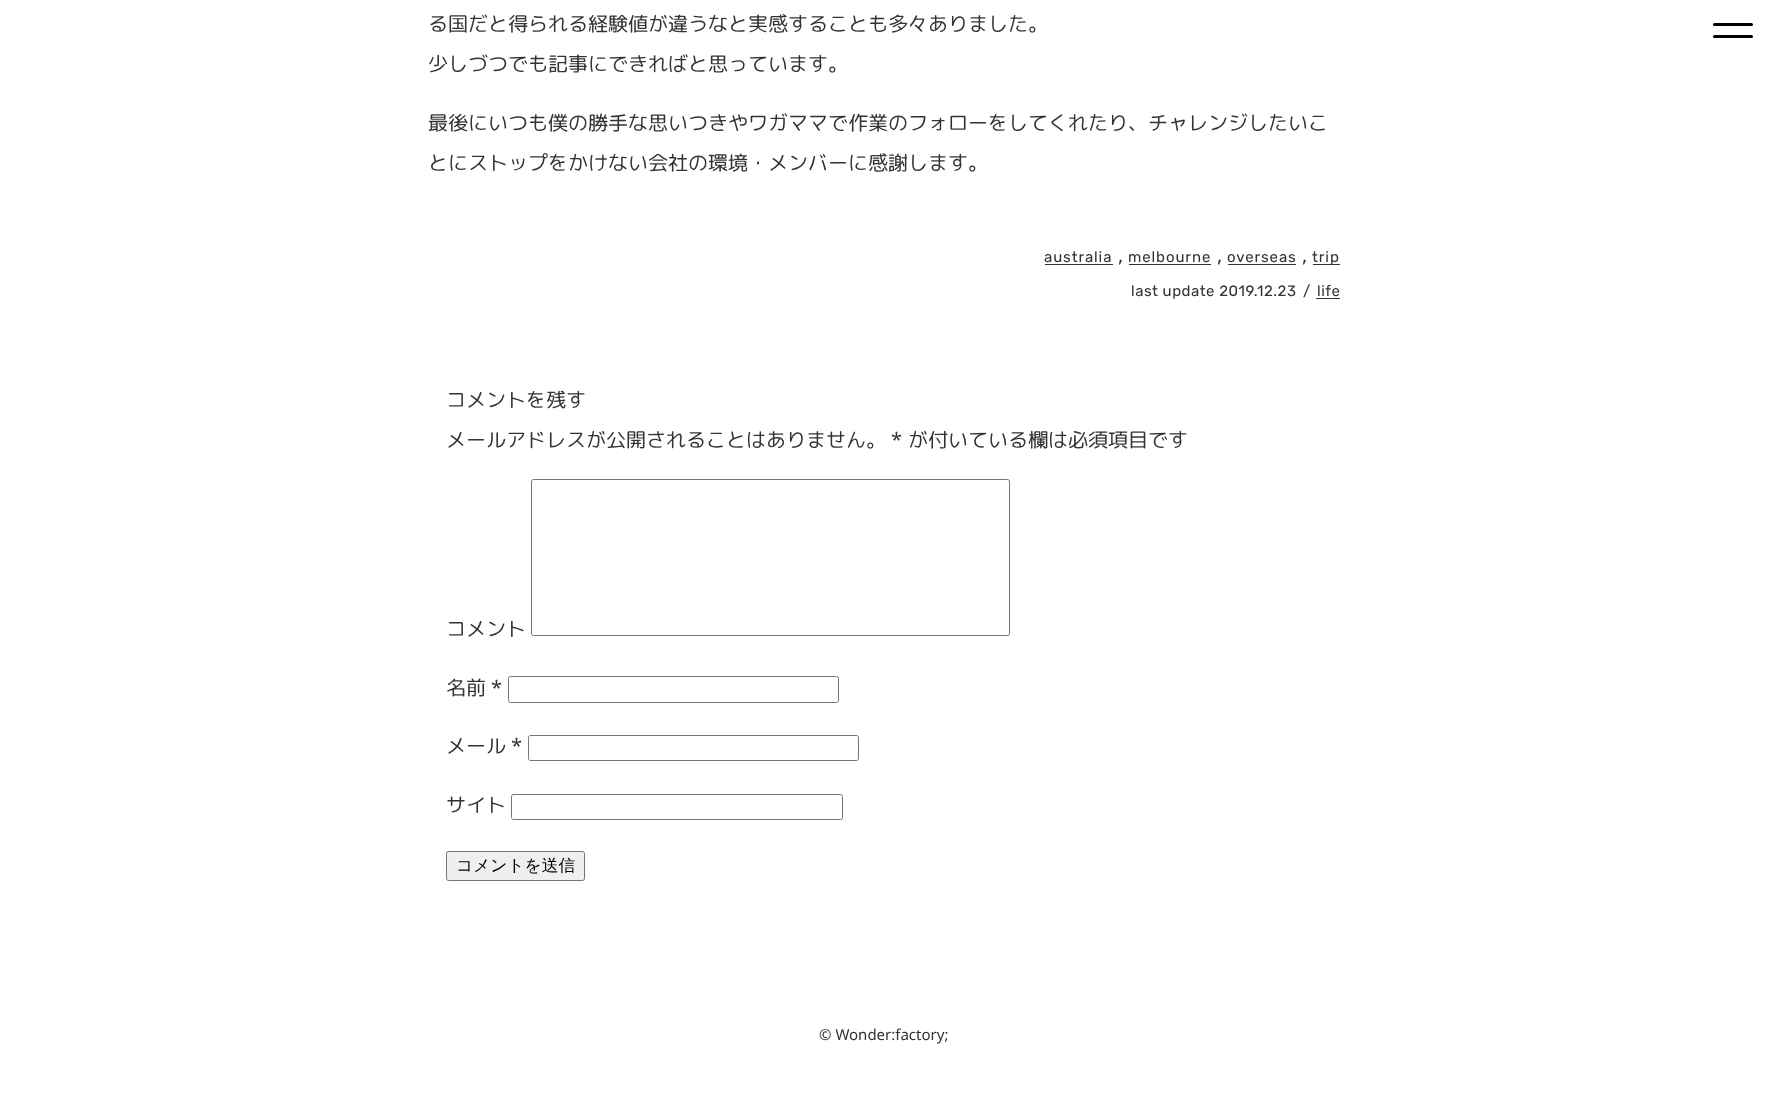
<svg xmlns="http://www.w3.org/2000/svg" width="1767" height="1104">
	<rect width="100%" height="100%" fill="#FFFFFF" />
	<g font-family="'Rounded Mplus 1c'" font-size="20" fill="#333333">
		<text x="428" y="31">る国だと得られる経験値が違うなと実感することも多々ありました。</text>
		<text x="428" y="71">少しづつでも記事にできればと思っています。</text>
		<text x="428" y="130">最後にいつも僕の勝手な思いつきやワガママで作業のフォローをしてくれたり、チャレンジしたいこ</text>
		<text x="428" y="170">とにストップをかけない会社の環境・メンバーに感謝します。</text>
	</g>
	<text x="1044" y="262" font-family="Rubik" font-size="15" letter-spacing="0.9" fill="#333333">australia</text>
	<rect x="1045" y="264" width="68" height="1" fill="#333333" />
	<text x="1118" y="262" font-family="Noto Sans" font-size="20" fill="#333333">,</text>
	<text x="1128" y="262" font-family="Rubik" font-size="15" letter-spacing="0.9" fill="#333333">melbourne</text>
	<rect x="1129" y="264" width="82" height="1" fill="#333333" />
	<text x="1217" y="262" font-family="Noto Sans" font-size="20" fill="#333333">,</text>
	<text x="1227" y="262" font-family="Rubik" font-size="15" letter-spacing="0.9" fill="#333333">overseas</text>
	<rect x="1228" y="264" width="68" height="1" fill="#333333" />
	<text x="1302" y="262" font-family="Noto Sans" font-size="20" fill="#333333">,</text>
	<rect x="1313" y="264" width="27" height="1" fill="#333333" />
	<text x="1312" y="262" font-family="Rubik" font-size="15" letter-spacing="0.9" fill="#333333">trip</text>
	<g font-family="Rubik" font-size="15" letter-spacing="0.5" fill="#333333">
		<text x="1131" y="296">last update 2019.12.23</text>
		<text x="1303" y="296">/</text>
		<text x="1317" y="296">life</text>
	</g>
	<rect x="1316" y="298" width="24" height="1" fill="#333333" />
	<g font-family="'Rounded Mplus 1c'" font-size="20" fill="#333333">
		<text x="446" y="407">コメントを残す</text>
		<text x="446" y="447">メールアドレスが公開されることはありません。</text>
	</g>
	<text x="891" y="447" font-family="Noto Sans" font-size="20" fill="#333333">*</text>
	<g font-family="'Rounded Mplus 1c'" font-size="20" fill="#333333">
		<text x="908" y="447">が付いている欄は必須項目です</text>
		<text x="446" y="636">コメント</text>
	</g>
	<rect x="531.5" y="479.5" width="478" height="156" rx="2" fill="none" stroke="#767676" />
	<text x="446" y="695" font-family="'Rounded Mplus 1c'" font-size="20" fill="#333333">名前</text>
	<text x="491" y="695" font-family="Noto Sans" font-size="20" fill="#333333">*</text>
	<rect x="508.5" y="676.5" width="330" height="26" rx="2" fill="none" stroke="#767676" />
	<text x="446" y="753" font-family="'Rounded Mplus 1c'" font-size="20" fill="#333333">メール</text>
	<text x="511" y="753" font-family="Noto Sans" font-size="20" fill="#333333">*</text>
	<rect x="528.5" y="735.5" width="330" height="25" rx="2" fill="none" stroke="#767676" />
	<text x="446" y="812" font-family="'Rounded Mplus 1c'" font-size="20" fill="#333333">サイト</text>
	<rect x="511.5" y="794.5" width="331" height="25" rx="2" fill="none" stroke="#767676" />
	<rect x="446.5" y="851.5" width="138" height="29" rx="2" fill="#EFEFEF" stroke="#767676" />
	<text x="456" y="871" font-family="WenQuanYi Zen Hei" font-size="16.75" font-weight="500" fill="#000000">コメントを送信</text>
	<rect x="1713" y="23" width="40" height="3" rx="1.5" fill="#000000" />
	<rect x="1713" y="35" width="40" height="3" rx="1.5" fill="#000000" />
	<text x="819" y="1040" font-family="Noto Sans" font-size="15" fill="#333333">© Wonder:factory;</text>
</svg>
